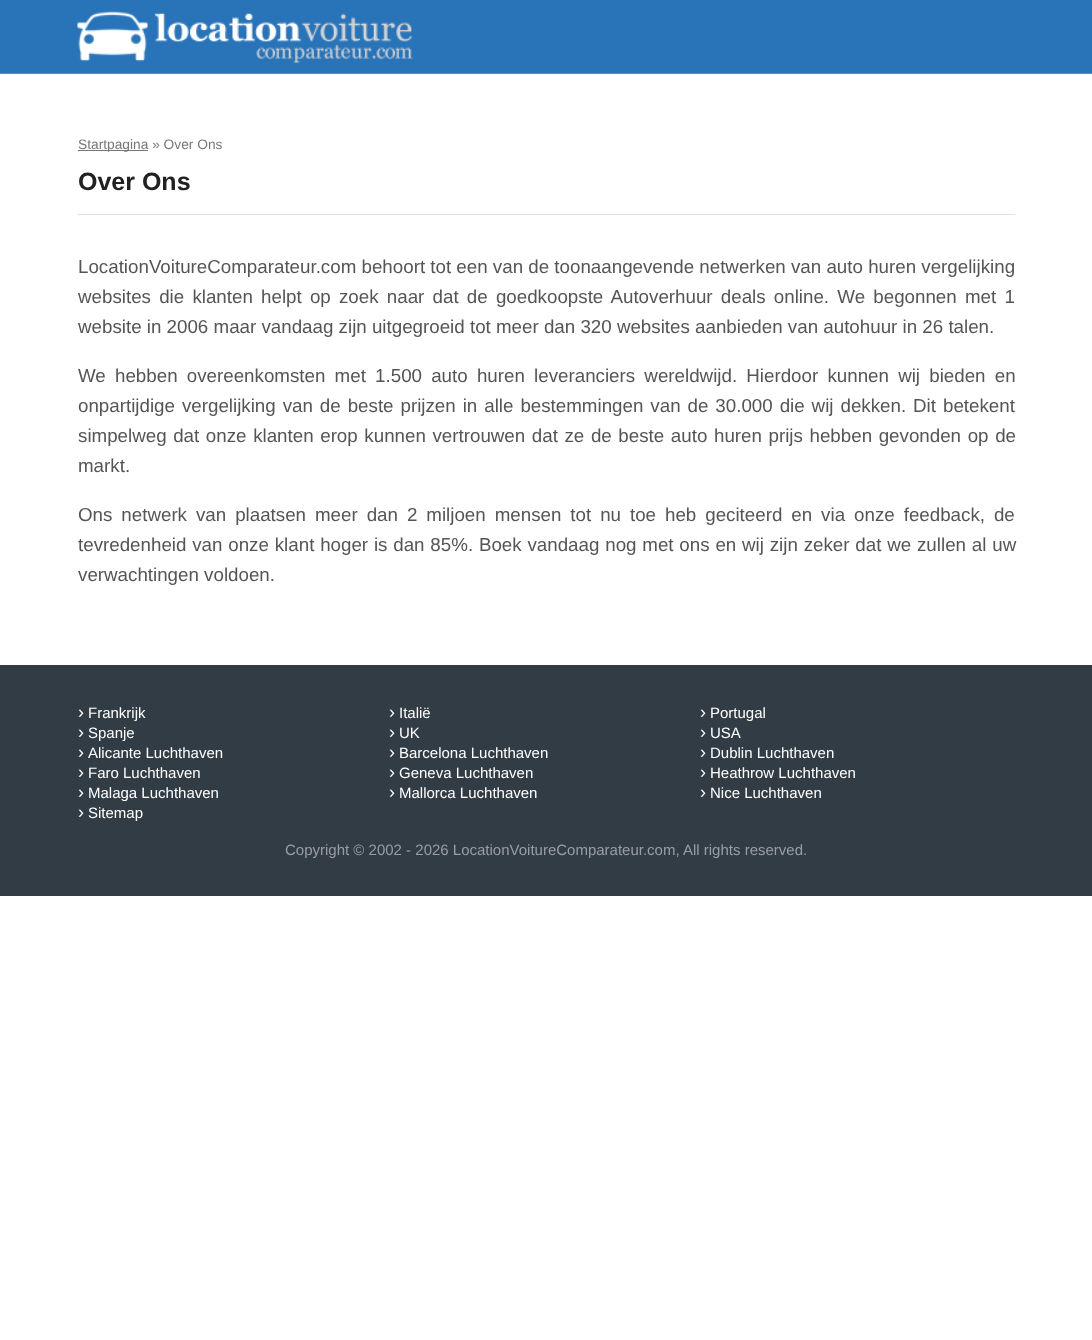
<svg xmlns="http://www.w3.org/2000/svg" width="1092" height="1340">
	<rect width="100%" height="100%" fill="#FFFFFF" />
	<rect x="0" y="0" width="1092" height="73" fill="#2974B9" />
	<rect x="0" y="73" width="1092" height="1" fill="#5890C3" />
	<image x="77" y="11" width="336" height="52" href="assets/img1.png" />
	<rect x="78" y="150" width="70" height="1" fill="#777777" />
	<text x="78" y="149" font-family="Liberation Sans" font-size="13.75" fill="#777777">Startpagina » Over Ons</text>
	<rect x="78" y="214" width="937" height="1" fill="#E2E2E2" />
	<text x="78" y="190" font-family="Liberation Sans" font-size="25" font-weight="700" fill="#212121">Over Ons</text>
	<g font-family="Liberation Sans" font-size="18.75" fill="#555555">
		<text x="78" y="273">LocationVoitureComparateur.com behoort tot een van de toonaangevende netwerken van auto huren vergelijking</text>
		<text x="78" y="303" word-spacing="3">websites die klanten helpt op zoek naar dat de goedkoopste Autoverhuur deals online. We begonnen met 1</text>
		<text x="78" y="333">website in 2006 maar vandaag zijn uitgegroeid tot meer dan 320 websites aanbieden van autohuur in 26 talen.</text>
		<text x="78" y="382" word-spacing="4">We hebben overeenkomsten met 1.500 auto huren leveranciers wereldwijd. Hierdoor kunnen wij bieden en</text>
		<text x="78" y="412" word-spacing="1.75">onpartijdige vergelijking van de beste prijzen in alle bestemmingen van de 30.000 die wij dekken. Dit betekent</text>
		<text x="78" y="442" word-spacing="1.4">simpelweg dat onze klanten erop kunnen vertrouwen dat ze de beste auto huren prijs hebben gevonden op de</text>
		<text x="78" y="472">markt.</text>
		<text x="78" y="521" word-spacing="3.75">Ons netwerk van plaatsen meer dan 2 miljoen mensen tot nu toe heb geciteerd en via onze feedback, de</text>
		<text x="78" y="551" word-spacing="0.6">tevredenheid van onze klant hoger is dan 85%. Boek vandaag nog met ons en wij zijn zeker dat we zullen al uw</text>
		<text x="78" y="581">verwachtingen voldoen.</text>
	</g>
	<rect x="0" y="665" width="1092" height="231" fill="#323C45" />
	<text x="78" y="718" font-family="Liberation Sans" font-size="18" fill="#FFFFFF">›</text>
	<text x="88" y="718" font-family="Liberation Sans" font-size="15" fill="#FFFFFF">Frankrijk</text>
	<text x="389" y="718" font-family="Liberation Sans" font-size="18" fill="#FFFFFF">›</text>
	<text x="399" y="718" font-family="Liberation Sans" font-size="15" fill="#FFFFFF">Italië</text>
	<text x="700" y="718" font-family="Liberation Sans" font-size="18" fill="#FFFFFF">›</text>
	<text x="710" y="718" font-family="Liberation Sans" font-size="15" fill="#FFFFFF">Portugal</text>
	<text x="78" y="738" font-family="Liberation Sans" font-size="18" fill="#FFFFFF">›</text>
	<text x="88" y="738" font-family="Liberation Sans" font-size="15" fill="#FFFFFF">Spanje</text>
	<text x="389" y="738" font-family="Liberation Sans" font-size="18" fill="#FFFFFF">›</text>
	<text x="399" y="738" font-family="Liberation Sans" font-size="15" fill="#FFFFFF">UK</text>
	<text x="700" y="738" font-family="Liberation Sans" font-size="18" fill="#FFFFFF">›</text>
	<text x="710" y="738" font-family="Liberation Sans" font-size="15" fill="#FFFFFF">USA</text>
	<text x="78" y="758" font-family="Liberation Sans" font-size="18" fill="#FFFFFF">›</text>
	<text x="88" y="758" font-family="Liberation Sans" font-size="15" fill="#FFFFFF">Alicante Luchthaven</text>
	<text x="389" y="758" font-family="Liberation Sans" font-size="18" fill="#FFFFFF">›</text>
	<text x="399" y="758" font-family="Liberation Sans" font-size="15" fill="#FFFFFF">Barcelona Luchthaven</text>
	<text x="700" y="758" font-family="Liberation Sans" font-size="18" fill="#FFFFFF">›</text>
	<text x="710" y="758" font-family="Liberation Sans" font-size="15" fill="#FFFFFF">Dublin Luchthaven</text>
	<text x="78" y="778" font-family="Liberation Sans" font-size="18" fill="#FFFFFF">›</text>
	<text x="88" y="778" font-family="Liberation Sans" font-size="15" fill="#FFFFFF">Faro Luchthaven</text>
	<text x="389" y="778" font-family="Liberation Sans" font-size="18" fill="#FFFFFF">›</text>
	<text x="399" y="778" font-family="Liberation Sans" font-size="15" fill="#FFFFFF">Geneva Luchthaven</text>
	<text x="700" y="778" font-family="Liberation Sans" font-size="18" fill="#FFFFFF">›</text>
	<text x="710" y="778" font-family="Liberation Sans" font-size="15" fill="#FFFFFF">Heathrow Luchthaven</text>
	<text x="78" y="798" font-family="Liberation Sans" font-size="18" fill="#FFFFFF">›</text>
	<text x="88" y="798" font-family="Liberation Sans" font-size="15" fill="#FFFFFF">Malaga Luchthaven</text>
	<text x="389" y="798" font-family="Liberation Sans" font-size="18" fill="#FFFFFF">›</text>
	<text x="399" y="798" font-family="Liberation Sans" font-size="15" fill="#FFFFFF">Mallorca Luchthaven</text>
	<text x="700" y="798" font-family="Liberation Sans" font-size="18" fill="#FFFFFF">›</text>
	<text x="710" y="798" font-family="Liberation Sans" font-size="15" fill="#FFFFFF">Nice Luchthaven</text>
	<text x="78" y="818" font-family="Liberation Sans" font-size="18" fill="#FFFFFF">›</text>
	<text x="88" y="818" font-family="Liberation Sans" font-size="15" fill="#FFFFFF">Sitemap</text>
	<text x="285" y="855" font-family="Liberation Sans" font-size="15" fill="#999EA2">Copyright © 2002 - 2026 LocationVoitureComparateur.com, All rights reserved.</text>
</svg>
